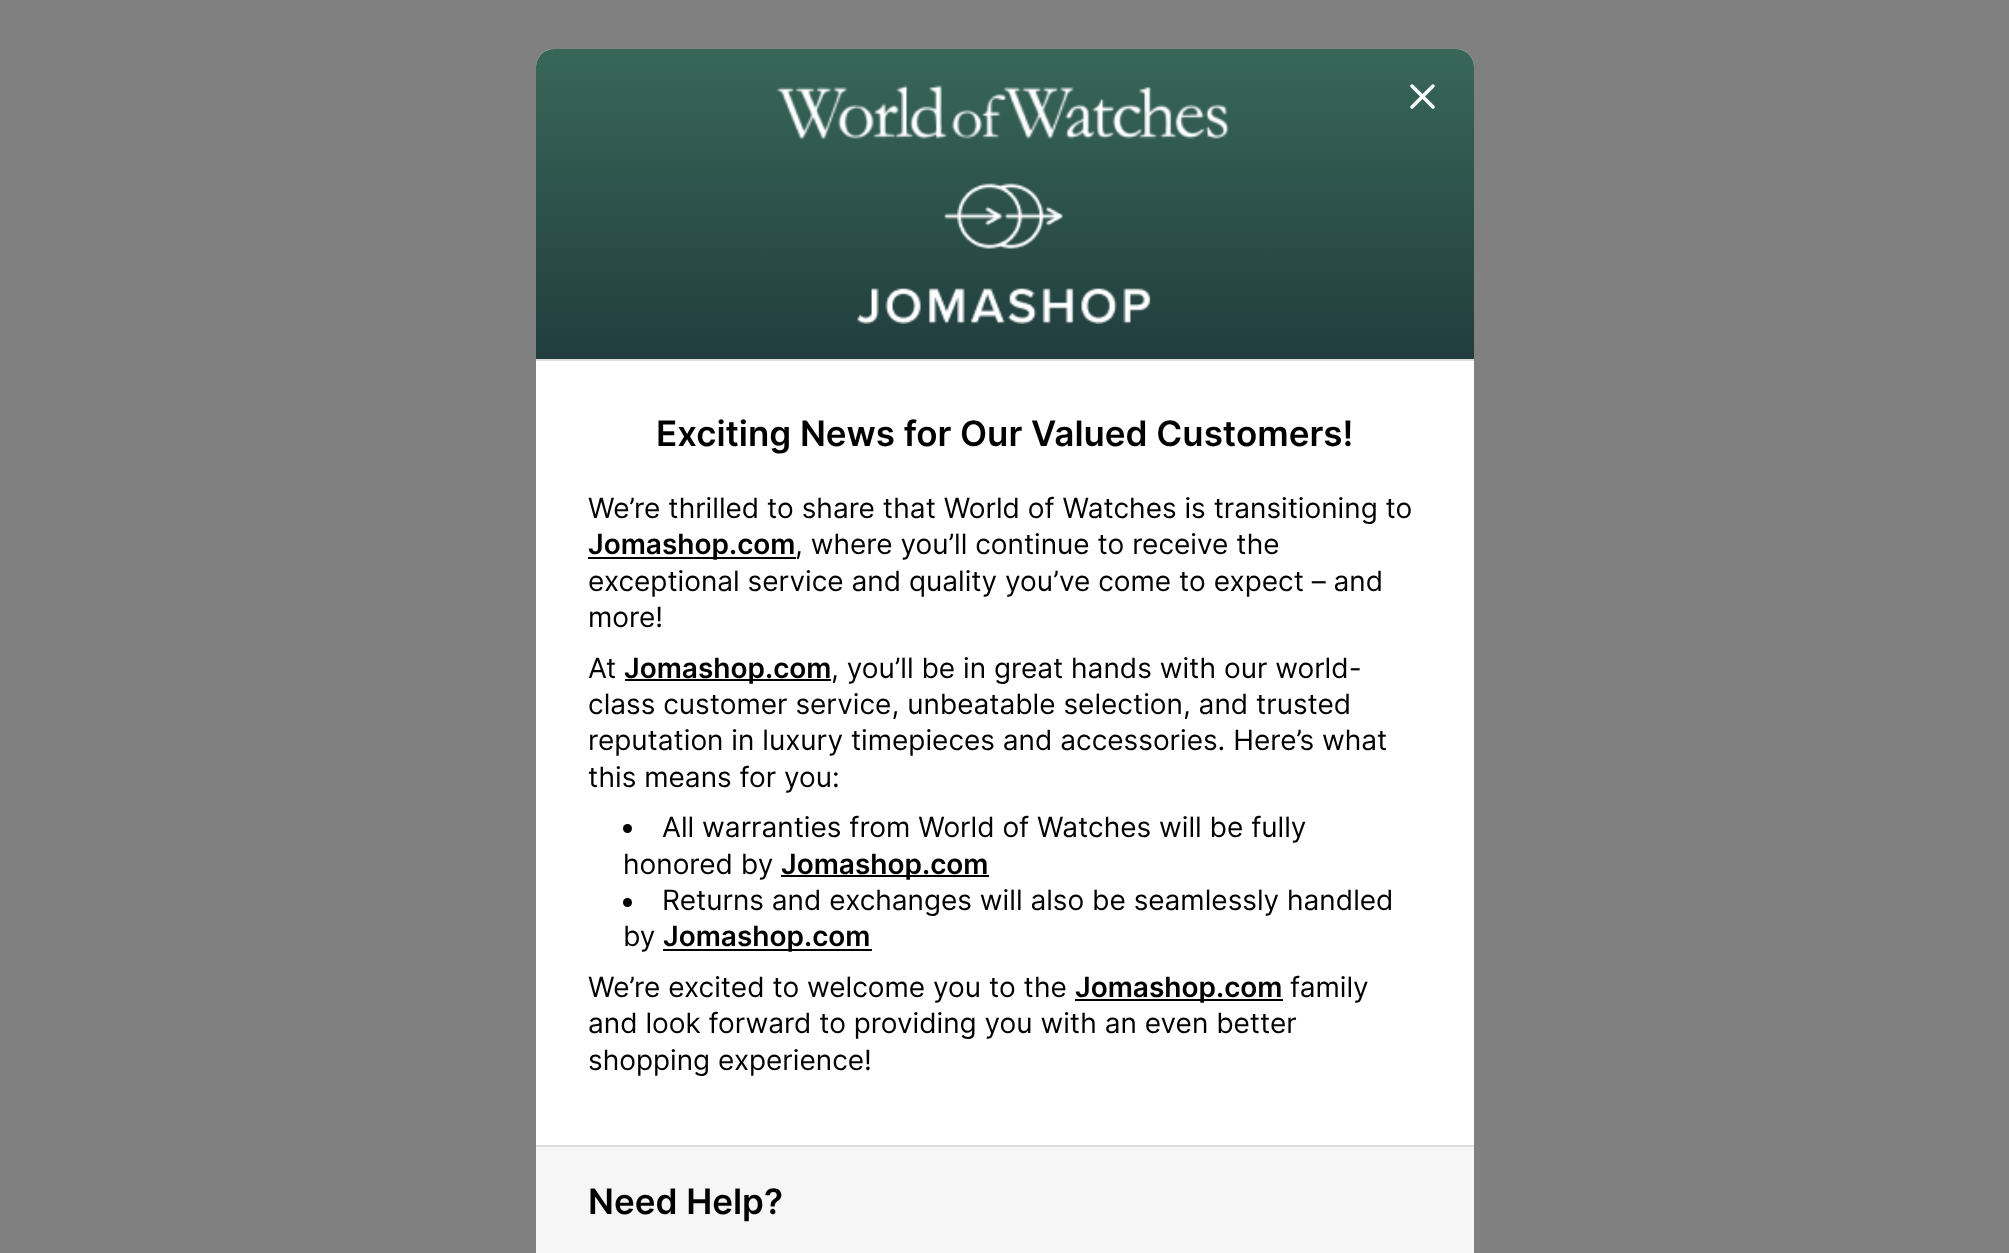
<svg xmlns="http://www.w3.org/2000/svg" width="2009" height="1253">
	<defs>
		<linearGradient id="g1" gradientUnits="userSpaceOnUse" x1="1005" y1="49" x2="1005" y2="359"><stop offset="0" stop-color="#386758" /><stop offset="1" stop-color="#213D3E" /></linearGradient>
	</defs>
	<rect width="100%" height="100%" fill="#808080" />
	<rect x="536" y="49" width="938" height="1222" rx="18" fill="#FFFFFF" />
	<path d="M554 49H1456C1466 49 1474 57 1474 67V359H536V67C536 57 544 49 554 49Z" fill="url(#g1)" />
	<rect x="536" y="359" width="938" height="2" fill="#DDDDDD" />
	<image x="776" y="85" width="453" height="239" href="assets/img1.png" />
	<path d="M1433 86L1412 107M1412 86L1433 107" fill="none" stroke="#FFFFFF" stroke-width="3.5" stroke-linecap="round" stroke-linejoin="round" />
	<text x="656" y="446" font-family="Inter" font-size="35" font-weight="600" fill="#000000">Exciting News for Our Valued Customers!</text>
	<text x="588" y="518" font-family="Inter" font-size="28" fill="#000000">We’re thrilled to share that World of Watches is transitioning to</text>
	<rect x="588" y="557" width="208" height="2" fill="#000000" />
	<text x="588" y="554" font-family="Inter" font-size="28" font-weight="600" fill="#000000">Jomashop.com</text>
	<g font-family="Inter" font-size="28" fill="#000000">
		<text x="795" y="554">, where you’ll continue to receive the</text>
		<text x="588" y="591">exceptional service and quality you’ve come to expect – and</text>
		<text x="588" y="627">more!</text>
		<text x="588" y="678">At</text>
	</g>
	<rect x="625" y="679" width="206" height="2" fill="#000000" />
	<text x="624" y="678" font-family="Inter" font-size="28" font-weight="600" fill="#000000">Jomashop.com</text>
	<g font-family="Inter" font-size="28" fill="#000000">
		<text x="831" y="678">, you’ll be in great hands with our world-</text>
		<text x="588" y="714">class customer service, unbeatable selection, and trusted</text>
		<text x="588" y="750">reputation in luxury timepieces and accessories. Here’s what</text>
		<text x="588" y="787">this means for you:</text>
	</g>
	<circle cx="627.5" cy="828.5" r="4.5" fill="#000000" />
	<g font-family="Inter" font-size="28" fill="#000000">
		<text x="662" y="837">All warranties from World of Watches will be fully</text>
		<text x="623" y="874">honored by</text>
	</g>
	<rect x="781" y="875" width="208" height="2" fill="#000000" />
	<text x="781" y="874" font-family="Inter" font-size="28" font-weight="600" fill="#000000">Jomashop.com</text>
	<circle cx="627.5" cy="902.5" r="4.5" fill="#000000" />
	<g font-family="Inter" font-size="28" fill="#000000">
		<text x="662" y="910">Returns and exchanges will also be seamlessly handled</text>
		<text x="623" y="946">by</text>
	</g>
	<rect x="663" y="949" width="209" height="2" fill="#000000" />
	<text x="663" y="946" font-family="Inter" font-size="28" font-weight="600" fill="#000000">Jomashop.com</text>
	<text x="588" y="997" font-family="Inter" font-size="28" fill="#000000">We’re excited to welcome you to the</text>
	<rect x="1075" y="999" width="208" height="2" fill="#000000" />
	<text x="1075" y="997" font-family="Inter" font-size="28" font-weight="600" fill="#000000">Jomashop.com</text>
	<g font-family="Inter" font-size="28" fill="#000000">
		<text x="1290" y="997">family</text>
		<text x="588" y="1033">and look forward to providing you with an even better</text>
		<text x="588" y="1070">shopping experience!</text>
	</g>
	<rect x="536" y="1147" width="938" height="106" fill="#F6F6F6" />
	<rect x="536" y="1145" width="938" height="2" fill="#DDDDDD" />
	<text x="588" y="1214" font-family="Inter" font-size="35" font-weight="600" fill="#000000">Need Help?</text>
</svg>
